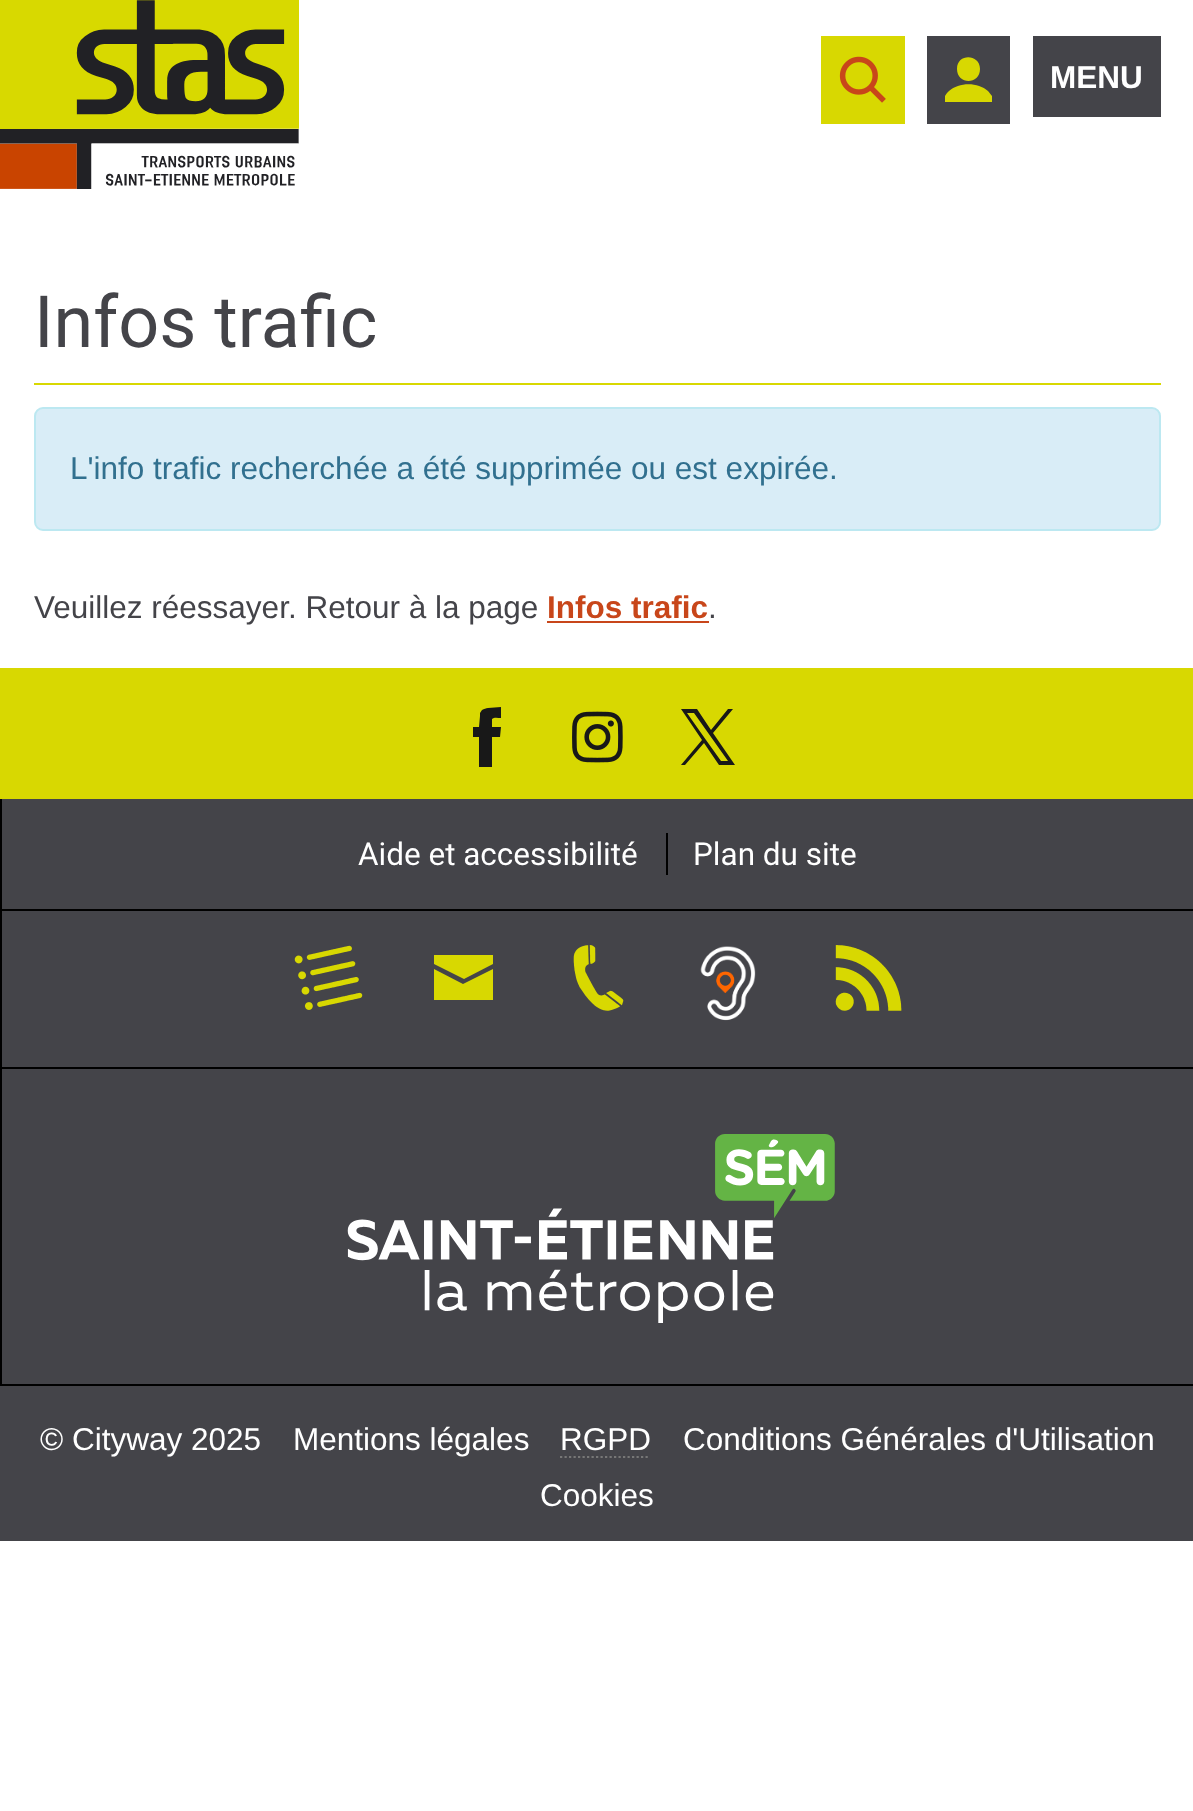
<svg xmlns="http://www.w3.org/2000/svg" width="1193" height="1811">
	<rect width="100%" height="100%" fill="#FFFFFF" />
	<image x="0" y="0" width="299" height="189" href="assets/img1.png" />
	<rect x="821" y="36" width="84" height="88" fill="#D8D801" />
	<image x="839" y="56" width="47" height="47" href="assets/img2.png" />
	<rect x="927" y="36" width="83" height="88" fill="#444449" />
	<path d="M945 102H992V96L988 91C978 82 959 82 949 91C947 93 946 94 945 96ZM957 69C957 85 980 85 980 69C980 54 957 53 957 69Z" fill="#D8D801" />
	<rect x="1033" y="36" width="128" height="81" fill="#444449" />
	<text x="1050" y="88" font-family="Liberation Sans" font-size="31.5" font-weight="700" fill="#FFFFFF">MENU</text>
	<rect x="34" y="383" width="1127" height="2" fill="#D8D801" />
	<text x="34" y="347" font-family="Roboto" font-size="72" fill="#444449">Infos trafic</text>
	<rect x="35" y="408" width="1125" height="122" rx="8" fill="#D9EDF7" stroke="#BCE8F1" stroke-width="2" />
	<text x="70" y="479" font-family="Liberation Sans" font-size="31.5" fill="#31708F">L'info trafic recherchée a été supprimée ou est expirée.</text>
	<text x="34" y="618" font-family="Liberation Sans" font-size="31.5" fill="#444449">Veuillez réessayer. Retour à la page</text>
	<text x="547" y="618" font-family="Liberation Sans" font-size="31.5" font-weight="700" fill="#C8461A">Infos trafic</text>
	<rect x="547" y="621" width="162" height="2" fill="#C8461A" />
	<text x="708" y="618" font-family="Liberation Sans" font-size="31.5" fill="#444449">.</text>
	<rect x="0" y="668" width="1193" height="131" fill="#D8D801" />
	<path d="M501 707L488 708C486 708 484 709 482 710L480 713V716L479 727H473V737H479V767H492V737H500L501 727H492V719C494 717 498 718 501 718Z" fill="#181818" />
	<image x="572" y="711" width="51" height="52" href="assets/img3.png" />
	<path d="M713 733L733 709H728L711 730L697 709H681L702 740L681 765H685L704 743L719 765H735ZM706 740L687 713H694L728 761H721Z" fill="#181818" />
	<rect x="0" y="799" width="1193" height="742" fill="#444449" />
	<rect x="0" y="909" width="1193" height="2" fill="#000000" />
	<rect x="0" y="799" width="2" height="587" fill="#000000" />
	<rect x="666" y="833" width="2" height="42" fill="#000000" />
	<g font-family="Roboto" font-size="31.5" fill="#FFFFFF">
		<text x="358" y="865">Aide et accessibilité</text>
		<text x="693" y="865">Plan du site</text>
	</g>
	<rect x="2" y="1384" width="1191" height="2" fill="#000000" />
	<image x="294" y="945" width="69" height="65" href="assets/img4.png" />
	<path d="M493 955H434V964L464 979L493 964ZM493 1000V969L463 984L434 969V1000Z" fill="#D8D801" />
	<image x="573" y="945" width="51" height="66" href="assets/img5.png" />
	<image x="700" y="946" width="56" height="75" href="assets/img6.png" />
	<image x="835" y="945" width="67" height="66" href="assets/img7.png" />
	<rect x="2" y="1067" width="1191" height="2" fill="#000000" />
	<image x="347" y="1134" width="488" height="189" href="assets/img8.png" />
	<g font-family="Liberation Sans" font-size="31.5" fill="#FFFFFF">
		<text x="40" y="1450">© Cityway 2025</text>
		<text x="293" y="1450">Mentions légales</text>
		<text x="560" y="1450">RGPD</text>
	</g>
	<path d="M560 1457H650" fill="none" stroke="#777777" stroke-width="2.2" stroke-dasharray="2.25 2.25" />
	<g font-family="Liberation Sans" font-size="31.5" fill="#FFFFFF">
		<text x="683" y="1450">Conditions Générales d'Utilisation</text>
		<text x="540" y="1506">Cookies</text>
	</g>
</svg>
